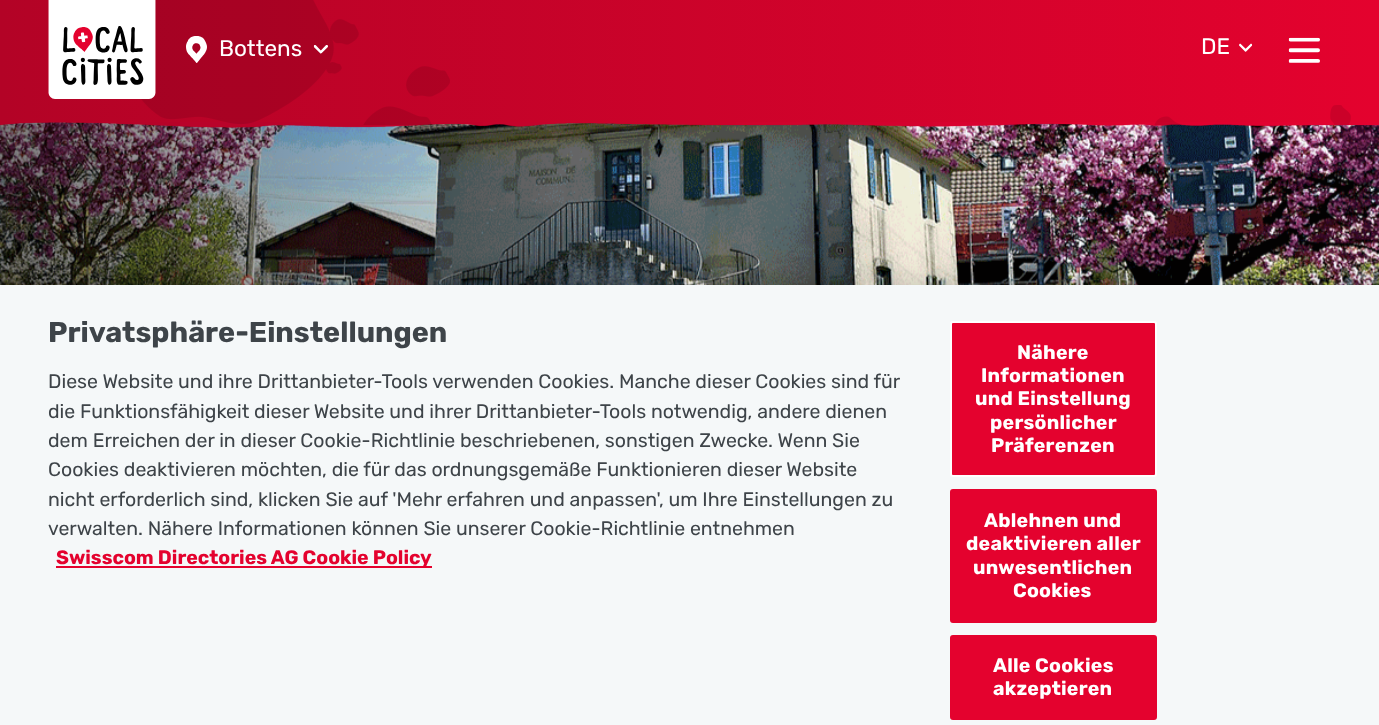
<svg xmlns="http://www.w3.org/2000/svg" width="1379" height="725">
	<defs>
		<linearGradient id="g1" gradientUnits="userSpaceOnUse" x1="0" y1="61" x2="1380" y2="61"><stop offset="0" stop-color="#B30326" /><stop offset="1" stop-color="#E4022E" /></linearGradient>
		<linearGradient id="g2" gradientUnits="userSpaceOnUse" x1="0" y1="32" x2="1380" y2="31"><stop offset="0" stop-color="#000000" stop-opacity="0.5" /><stop offset="0.5" stop-color="#000000" stop-opacity="0" /></linearGradient>
	</defs>
	<rect width="100%" height="100%" fill="#FFFFFF" />
	<rect x="0" y="0" width="1379" height="122" fill="url(#g1)" />
	<image x="0" y="122" width="1379" height="163" href="assets/img9.png" />
	<rect x="0" y="122" width="660" height="163" fill="url(#g2)" />
	<image x="0" y="122" width="1379" height="6" href="assets/img8.png" />
	<image x="141" y="0" width="309" height="125" href="assets/img1.png" />
	<image x="48" y="0" width="108" height="99" href="assets/img2.png" />
	<image x="186" y="36" width="21" height="27" href="assets/img3.png" />
	<text x="219" y="56" font-family="Rubik" font-size="22.5" fill="#FFFFFF">Bottens</text>
	<image x="313" y="45" width="15" height="9" href="assets/img4.png" />
	<text x="1201" y="54" font-family="Rubik" font-size="22.5" fill="#FFFFFF">DE</text>
	<image x="1239" y="43" width="14" height="9" href="assets/img5.png" />
	<image x="1288" y="37" width="32" height="26" href="assets/img6.png" />
	<image x="1154" y="105" width="197" height="20" href="assets/img7.png" />
	<rect x="0" y="285" width="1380" height="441" fill="#000000" fill-opacity="0.2" filter="blur(13.5px)" />
	<rect x="0" y="285" width="1379" height="440" fill="#F5F8F9" />
	<text x="48" y="342" font-family="Rubik" font-size="28.75" font-weight="700" fill="#3E4449">Privatsphäre-Einstellungen</text>
	<g font-family="Rubik" font-size="19.5" fill="#3E4449">
		<text x="48" y="388">Diese Website und ihre Drittanbieter-Tools verwenden Cookies. Manche dieser Cookies sind für</text>
		<text x="48" y="418">die Funktionsfähigkeit dieser Website und ihrer Drittanbieter-Tools notwendig, andere dienen</text>
		<text x="48" y="447">dem Erreichen der in dieser Cookie-Richtlinie beschriebenen, sonstigen Zwecke. Wenn Sie</text>
		<text x="48" y="476">Cookies deaktivieren möchten, die für das ordnungsgemäße Funktionieren dieser Website</text>
		<text x="48" y="506">nicht erforderlich sind, klicken Sie auf 'Mehr erfahren und anpassen', um Ihre Einstellungen zu</text>
		<text x="48" y="535">verwalten. Nähere Informationen können Sie unserer Cookie-Richtlinie entnehmen</text>
	</g>
	<rect x="56" y="566" width="376" height="2" fill="#E4022E" />
	<text x="56" y="564" font-family="Rubik" font-size="19.5" font-weight="700" fill="#E4022E">Swisscom Directories AG Cookie Policy</text>
	<rect x="951" y="322" width="205" height="154" rx="2" fill="#E4022E" stroke="#FFFFFF" stroke-width="2" />
	<g font-family="Rubik" font-size="19.5" font-weight="700" letter-spacing="0.25" fill="#FFFFFF">
		<text x="1017" y="359">Nähere</text>
		<text x="981" y="382">Informationen</text>
		<text x="975" y="405">und Einstellung</text>
		<text x="990" y="429">persönlicher</text>
		<text x="991" y="452">Präferenzen</text>
	</g>
	<rect x="951" y="490" width="205" height="132" rx="2" fill="#E4022E" stroke="#E4022E" stroke-width="2" />
	<g font-family="Rubik" font-size="19.5" font-weight="700" letter-spacing="0.25" fill="#FFFFFF">
		<text x="984" y="527">Ablehnen und</text>
		<text x="966" y="550">deaktivieren aller</text>
		<text x="973" y="574">unwesentlichen</text>
		<text x="1013" y="597">Cookies</text>
	</g>
	<rect x="951" y="636" width="205" height="83" rx="2" fill="#E4022E" stroke="#E4022E" stroke-width="2" />
	<g font-family="Rubik" font-size="19.5" font-weight="700" letter-spacing="0.25" fill="#FFFFFF">
		<text x="993" y="672">Alle Cookies</text>
		<text x="993" y="695">akzeptieren</text>
	</g>
</svg>
